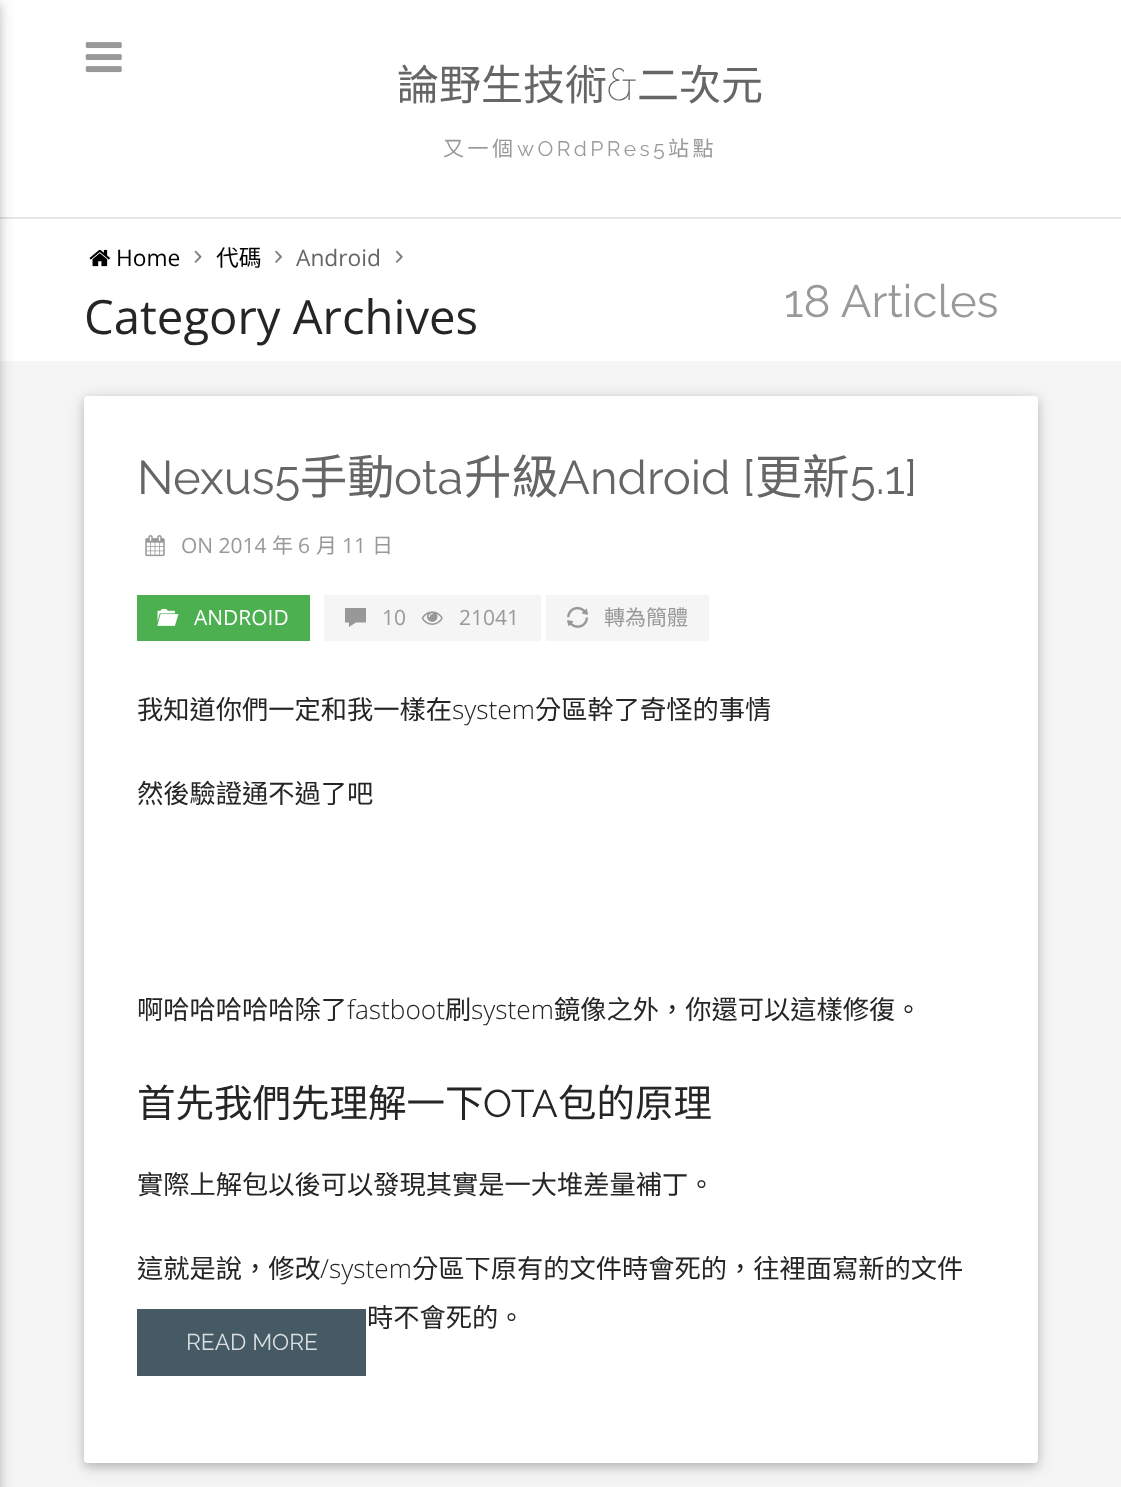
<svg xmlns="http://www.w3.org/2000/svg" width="1121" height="1487">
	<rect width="100%" height="100%" fill="#FFFFFF" />
	<rect x="0" y="217" width="1121" height="2" fill="#E6E6E6" />
	<rect x="0" y="361" width="1121" height="1126" fill="#F5F5F5" />
	<rect x="-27" y="4" width="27" height="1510" fill="#000000" fill-opacity="0.12" filter="blur(9px)" />
	<rect x="-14" y="4" width="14" height="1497" fill="#000000" fill-opacity="0.16" filter="blur(4.5px)" />
	<image x="85" y="42" width="37" height="31" href="assets/img1.png" />
	<text x="397" y="100" font-family="Noto Sans CJK TC" font-size="42" fill="#666666">論野生技術</text>
	<text x="607" y="100" font-family="Poiret One" font-size="42" fill="#666666">&amp;</text>
	<text x="637" y="100" font-family="Noto Sans CJK TC" font-size="42" fill="#666666">二次元</text>
	<text x="443" y="156" font-family="Noto Sans CJK TC" font-size="21" letter-spacing="3.5" fill="#999999">又一個</text>
	<text x="517" y="156" font-family="Raleway" font-size="21" letter-spacing="3.5" fill="#999999">wORdPRes5</text>
	<text x="668" y="156" font-family="Noto Sans CJK TC" font-size="21" letter-spacing="3.5" fill="#999999">站點</text>
	<image x="89" y="249" width="21" height="18" href="assets/img2.png" />
	<text x="116" y="266" font-family="Open Sans" font-size="22.75" fill="#000000">Home</text>
	<image x="194" y="250" width="8" height="13" href="assets/img3.png" />
	<text x="216" y="266" font-family="Noto Sans CJK TC" font-size="22.75" fill="#000000">代碼</text>
	<image x="275" y="250" width="7" height="13" href="assets/img4.png" />
	<text x="296" y="266" font-family="Open Sans" font-size="22.75" fill="#666666">Android</text>
	<image x="395" y="250" width="8" height="13" href="assets/img5.png" />
	<text x="84" y="334" font-family="Open Sans" font-size="47.25" fill="#252525">Category Archives</text>
	<text x="784" y="317" font-family="Raleway" font-size="45.5" fill="#999999">18 Articles</text>
	<rect x="84" y="399" width="954" height="1068" rx="4" fill="#000000" fill-opacity="0.12" filter="blur(9px)" />
	<rect x="84" y="399" width="954" height="1068" rx="4" fill="#000000" fill-opacity="0.16" filter="blur(4.5px)" />
	<rect x="84" y="396" width="954" height="1067" rx="4" fill="#FFFFFF" />
	<text x="137" y="494" font-family="Raleway" font-size="47.25" fill="#666666">Nexus5</text>
	<text x="300" y="494" font-family="Noto Sans CJK TC" font-size="47.25" fill="#666666">手動</text>
	<text x="394" y="494" font-family="Raleway" font-size="47.25" fill="#666666">ota</text>
	<text x="464" y="494" font-family="Noto Sans CJK TC" font-size="47.25" fill="#666666">升級</text>
	<text x="558" y="494" font-family="Raleway" font-size="47.25" fill="#666666">Android [</text>
	<text x="755" y="494" font-family="Noto Sans CJK TC" font-size="47.25" fill="#666666">更新</text>
	<text x="850" y="494" font-family="Raleway" font-size="47.25" fill="#666666">5.1]</text>
	<image x="145" y="535" width="20" height="22" href="assets/img6.png" />
	<text x="181" y="553" font-family="Open Sans" font-size="21" fill="#999999">ON 2014</text>
	<text x="272" y="553" font-family="Noto Sans CJK TC" font-size="21" fill="#999999">年</text>
	<text x="298" y="553" font-family="Open Sans" font-size="21" fill="#999999">6</text>
	<text x="316" y="553" font-family="Noto Sans CJK TC" font-size="21" fill="#999999">月</text>
	<text x="342" y="553" font-family="Open Sans" font-size="21" fill="#999999">11</text>
	<text x="372" y="553" font-family="Noto Sans CJK TC" font-size="21" fill="#999999">日</text>
	<rect x="137" y="595" width="173" height="46" fill="#4CAF50" />
	<image x="157" y="608" width="22" height="18" href="assets/img7.png" />
	<text x="194" y="625" font-family="Open Sans" font-size="21" fill="#FFFFFF">ANDROID</text>
	<rect x="324" y="595" width="217" height="46" fill="#F5F5F5" />
	<path d="M345 622.5V608H366V622.5H356L349 627V622.5Z" fill="#989898" />
	<text x="382" y="625" font-family="Open Sans" font-size="21" fill="#999999">10</text>
	<image x="421" y="611" width="22" height="14" href="assets/img8.png" />
	<text x="459" y="625" font-family="Open Sans" font-size="21" fill="#999999">21041</text>
	<rect x="546" y="595" width="163" height="46" fill="#F5F5F5" />
	<image x="567" y="606" width="21" height="22" href="assets/img9.png" />
	<text x="604" y="625" font-family="Noto Sans CJK TC" font-size="21" fill="#999999">轉為簡體</text>
	<text x="137" y="719" font-family="Noto Sans CJK TC" font-size="26.25" fill="#252525">我知道你們一定和我一樣在</text>
	<text x="452" y="719" font-family="Open Sans" font-size="26.25" font-weight="300" fill="#252525">system</text>
	<g font-family="Noto Sans CJK TC" font-size="26.25" fill="#252525">
		<text x="535" y="719">分區幹了奇怪的事情</text>
		<text x="137" y="803">然後驗證通不過了吧</text>
		<text x="137" y="1019">啊哈哈哈哈哈除了</text>
	</g>
	<text x="347" y="1019" font-family="Open Sans" font-size="26.25" font-weight="300" fill="#252525">fastboot</text>
	<text x="445" y="1019" font-family="Noto Sans CJK TC" font-size="26.25" fill="#252525">刷</text>
	<text x="471" y="1019" font-family="Open Sans" font-size="26.25" font-weight="300" fill="#252525">system</text>
	<text x="554" y="1019" font-family="Noto Sans CJK TC" font-size="26.25" fill="#252525">鏡像之外，你還可以這樣修復。</text>
	<text x="137" y="1117" font-family="Noto Sans CJK TC" font-size="38.5" fill="#252525">首先我們先理解一下</text>
	<text x="483" y="1117" font-family="Raleway" font-size="38.5" fill="#252525">OTA</text>
	<text x="558" y="1117" font-family="Noto Sans CJK TC" font-size="38.5" fill="#252525">包的原理</text>
	<g font-family="Noto Sans CJK TC" font-size="26.25" fill="#252525">
		<text x="137" y="1194">實際上解包以後可以發現其實是一大堆差量補丁。</text>
		<text x="137" y="1278">這就是說，修改</text>
	</g>
	<text x="320" y="1278" font-family="Open Sans" font-size="26.25" font-weight="300" fill="#252525">/system</text>
	<g font-family="Noto Sans CJK TC" font-size="26.25" fill="#252525">
		<text x="412" y="1278">分區下原有的文件時會死的，往裡面寫新的文件</text>
		<text x="367" y="1327">時不會死的。</text>
	</g>
	<rect x="137" y="1309" width="229" height="67" fill="#455A64" />
	<text x="186" y="1350" font-family="Raleway" font-size="22.75" fill="#DADEE0">READ MORE</text>
</svg>
